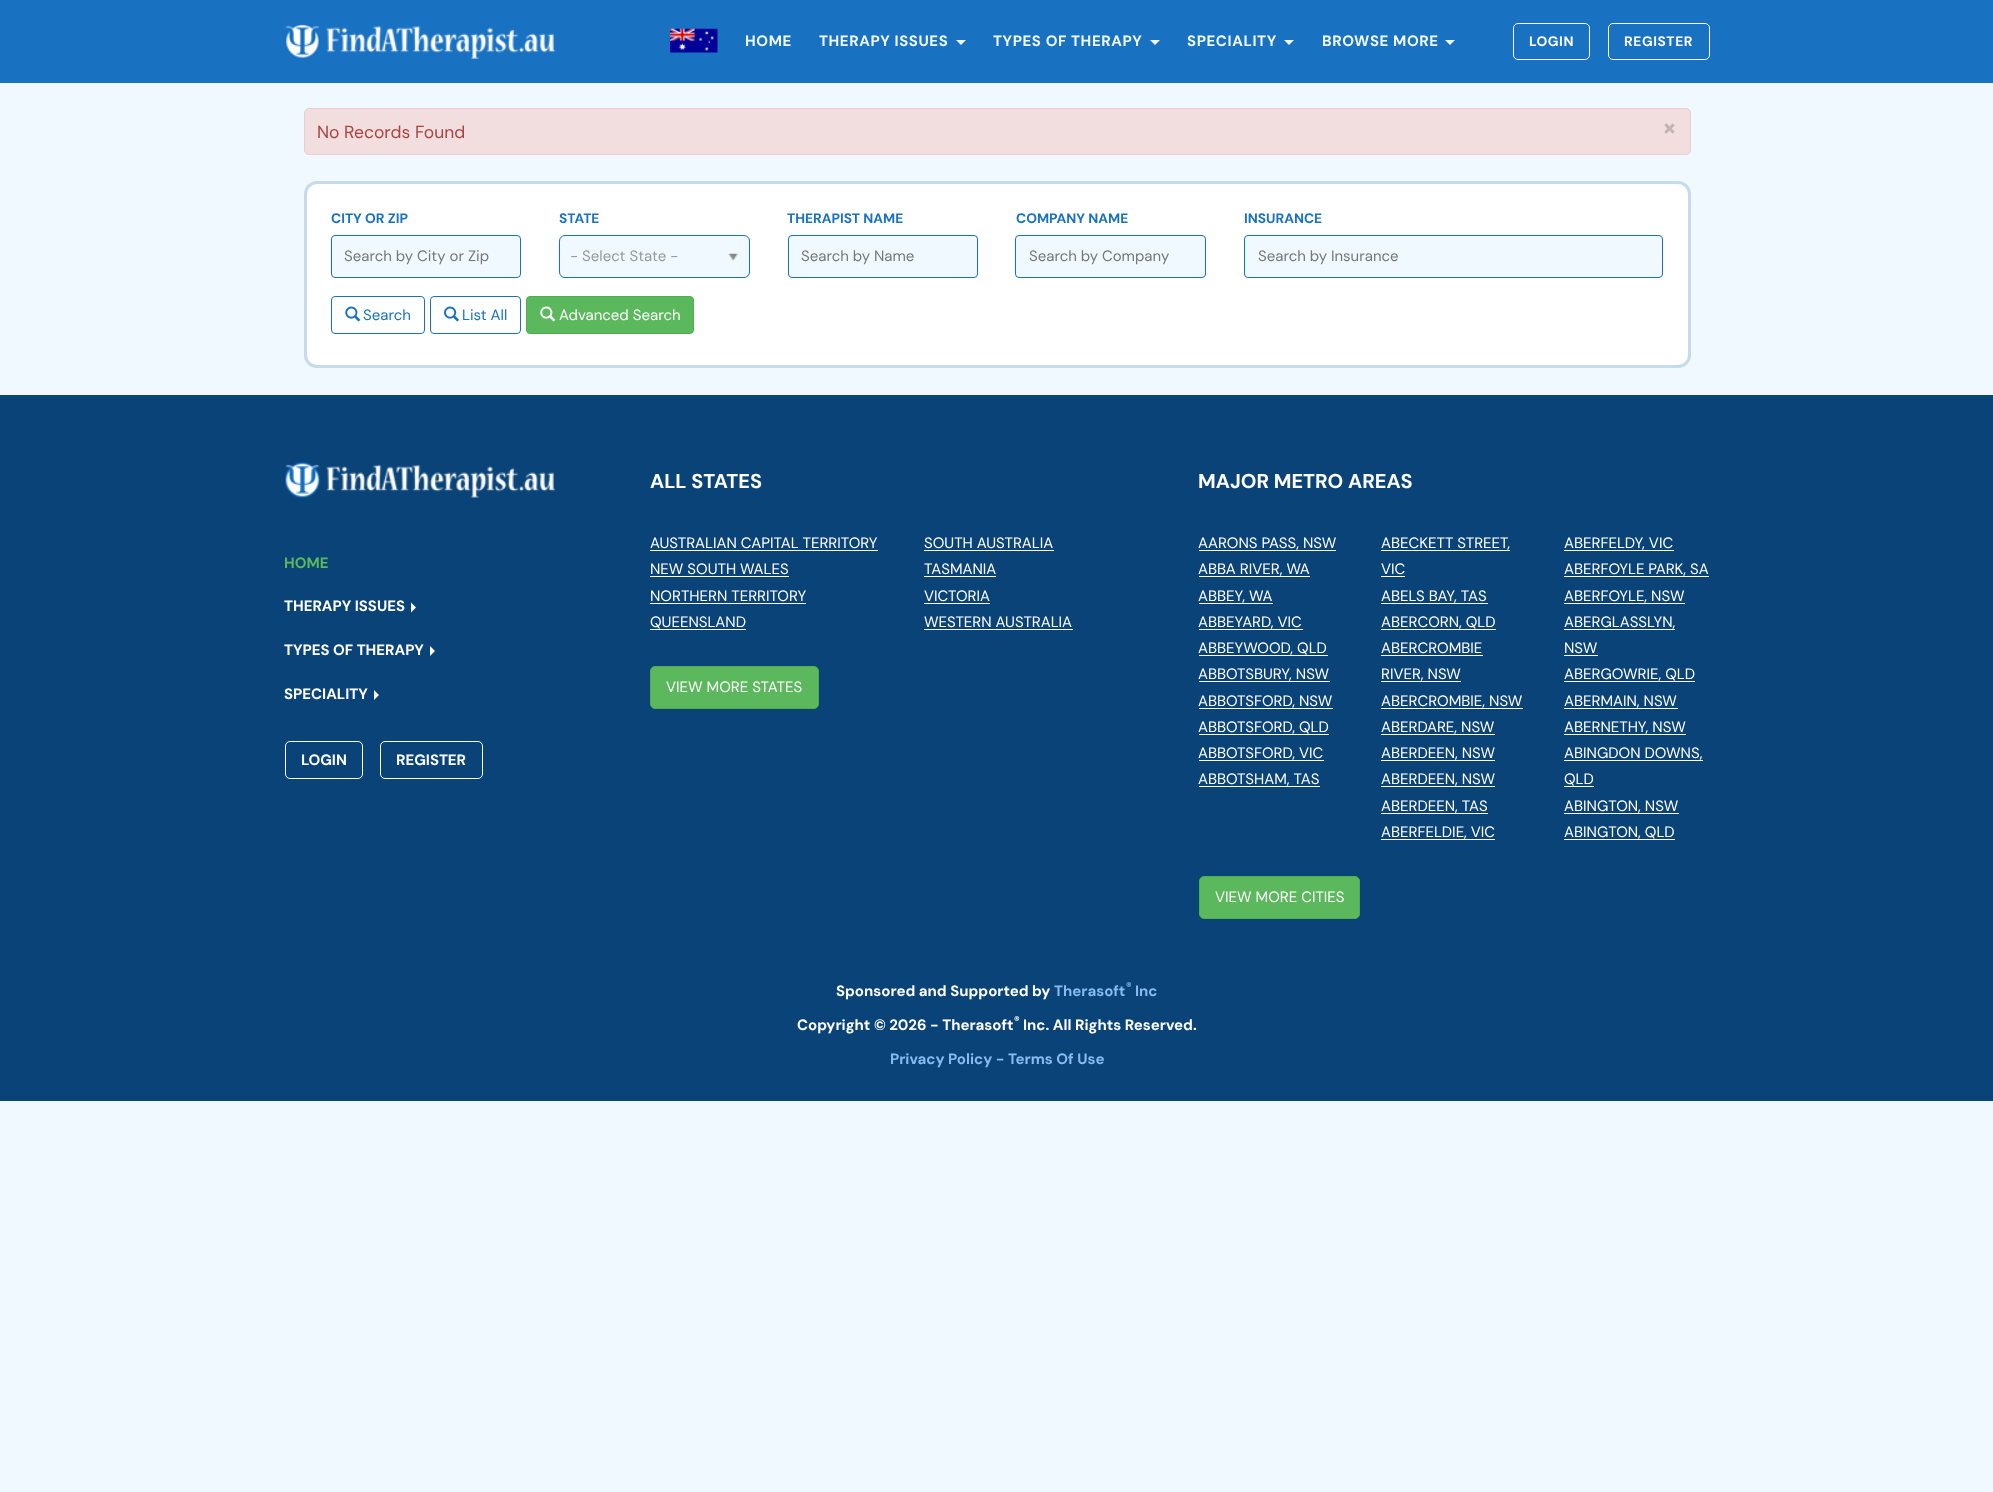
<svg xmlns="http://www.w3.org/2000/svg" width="1993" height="1492">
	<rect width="100%" height="100%" fill="#F0F9FF" />
	<rect x="0" y="0" width="1993" height="83" fill="#1971C2" />
	<image x="285" y="24" width="271" height="35" href="assets/img1.png" />
	<image x="670" y="28" width="48" height="25" href="assets/img2.png" />
	<g font-family="DM Sans" font-size="15" font-weight="700" letter-spacing="0.6" fill="#F0F9FF">
		<text x="745" y="46">HOME</text>
		<text x="819" y="46">THERAPY ISSUES</text>
	</g>
	<path d="M956 40H966L961 45Z" fill="#F0F9FF" />
	<text x="993" y="46" font-family="DM Sans" font-size="15" font-weight="700" letter-spacing="0.6" fill="#F0F9FF">TYPES OF THERAPY</text>
	<path d="M1150 40H1160L1155 45Z" fill="#F0F9FF" />
	<text x="1187" y="46" font-family="DM Sans" font-size="15" font-weight="700" letter-spacing="0.6" fill="#F0F9FF">SPECIALITY</text>
	<path d="M1284 40H1294L1289 45Z" fill="#F0F9FF" />
	<text x="1322" y="46" font-family="DM Sans" font-size="15" font-weight="700" letter-spacing="0.6" fill="#F0F9FF">BROWSE MORE</text>
	<path d="M1445 40H1455L1450 45Z" fill="#F0F9FF" />
	<rect x="1513.5" y="23.5" width="76" height="36" rx="4.5" fill="none" stroke="#FFFFFF" />
	<text x="1529" y="46" font-family="DM Sans" font-size="13.75" font-weight="700" letter-spacing="0.6" fill="#FFFFFF">LOGIN</text>
	<rect x="1608.5" y="23.5" width="101" height="36" rx="4.5" fill="none" stroke="#FFFFFF" />
	<text x="1624" y="46" font-family="DM Sans" font-size="13.75" font-weight="700" letter-spacing="0.6" fill="#FFFFFF">REGISTER</text>
	<rect x="304.5" y="108.5" width="1386" height="46" rx="4.5" fill="#F2DEDE" stroke="#EBCCD1" />
	<text x="317" y="138" font-family="DM Sans" font-size="17.5" fill="#A94442">No Records Found</text>
	<text x="1662" y="136" font-family="DM Sans" font-size="26" font-weight="700" fill="#C2B2B2">×</text>
	<rect x="305.5" y="182.5" width="1384" height="184" rx="11.5" fill="#FFFFFF" stroke="#C6DBE9" stroke-width="3" />
	<text x="331" y="223" font-family="DM Sans" font-size="13.75" font-weight="700" fill="#1971C2">CITY OR ZIP</text>
	<rect x="331.5" y="235.5" width="189" height="42" rx="3.5" fill="#F0F9FF" stroke="#1971C2" />
	<text x="344" y="261" font-family="DM Sans" font-size="15" fill="#777777">Search by City or Zip</text>
	<text x="559" y="223" font-family="DM Sans" font-size="13.75" font-weight="700" fill="#1971C2">STATE</text>
	<rect x="559.5" y="235.5" width="190" height="42" rx="5.5" fill="#F0F9FF" stroke="#1971C2" />
	<text x="570" y="261" font-family="DM Sans" font-size="15" fill="#999999">- Select State -</text>
	<image x="728" y="253" width="10" height="8" href="assets/img3.png" />
	<text x="787" y="223" font-family="DM Sans" font-size="13.75" font-weight="700" fill="#1971C2">THERAPIST NAME</text>
	<rect x="788.5" y="235.5" width="189" height="42" rx="3.5" fill="#F0F9FF" stroke="#1971C2" />
	<text x="801" y="261" font-family="DM Sans" font-size="15" fill="#777777">Search by Name</text>
	<text x="1016" y="223" font-family="DM Sans" font-size="13.75" font-weight="700" fill="#1971C2">COMPANY NAME</text>
	<rect x="1015.5" y="235.5" width="190" height="42" rx="3.5" fill="#F0F9FF" stroke="#1971C2" />
	<text x="1029" y="261" font-family="DM Sans" font-size="15" fill="#777777">Search by Company</text>
	<text x="1244" y="223" font-family="DM Sans" font-size="13.75" font-weight="700" fill="#1971C2">INSURANCE</text>
	<rect x="1244.5" y="235.5" width="418" height="42" rx="3.5" fill="#F0F9FF" stroke="#1971C2" />
	<text x="1258" y="261" font-family="DM Sans" font-size="15" fill="#777777">Search by Insurance</text>
	<rect x="331.5" y="296.5" width="93" height="37" rx="3.5" fill="none" stroke="#1971C2" />
	<image x="345" y="306" width="16" height="16" href="assets/img4.png" />
	<text x="363" y="320" font-family="DM Sans" font-size="15" fill="#1971C2">Search</text>
	<rect x="430.5" y="296.5" width="90" height="37" rx="3.5" fill="none" stroke="#1971C2" />
	<image x="444" y="306" width="15" height="16" href="assets/img5.png" />
	<text x="462" y="320" font-family="DM Sans" font-size="15" fill="#1971C2">List All</text>
	<rect x="526.5" y="296.5" width="167" height="37" rx="3.5" fill="#5CB85C" stroke="#4CAE4C" />
	<image x="540" y="306" width="16" height="16" href="assets/img6.png" />
	<text x="559" y="320" font-family="DM Sans" font-size="15" fill="#FFFFFF">Advanced Search</text>
	<rect x="0" y="395" width="1993" height="706" fill="#0A4378" />
	<image x="285" y="462" width="271" height="36" href="assets/img7.png" />
	<text x="284" y="568" font-family="DM Sans" font-size="15" font-weight="700" fill="#5CB85C">HOME</text>
	<text x="284" y="611" font-family="DM Sans" font-size="15" font-weight="700" fill="#FFFFFF">THERAPY ISSUES</text>
	<path d="M411 612.5V602.5L416 607.5Z" fill="#FFFFFF" />
	<text x="284" y="655" font-family="DM Sans" font-size="15" font-weight="700" fill="#FFFFFF">TYPES OF THERAPY</text>
	<path d="M430 656V646L435 651Z" fill="#FFFFFF" />
	<text x="284" y="699" font-family="DM Sans" font-size="15" font-weight="700" fill="#FFFFFF">SPECIALITY</text>
	<path d="M374 700V690L379 695Z" fill="#FFFFFF" />
	<rect x="285.5" y="741.5" width="77" height="37" rx="4.5" fill="none" stroke="#FFFFFF" />
	<text x="301" y="765" font-family="DM Sans" font-size="15" font-weight="700" fill="#FFFFFF">LOGIN</text>
	<rect x="380.5" y="741.5" width="102" height="37" rx="4.5" fill="none" stroke="#FFFFFF" />
	<text x="396" y="765" font-family="DM Sans" font-size="15" font-weight="700" fill="#FFFFFF">REGISTER</text>
	<text x="650" y="488" font-family="DM Sans" font-size="20" font-weight="700" fill="#FFFFFF">ALL STATES</text>
	<text x="650" y="548" font-family="DM Sans" font-size="15" fill="#FFFFFF">AUSTRALIAN CAPITAL TERRITORY</text>
	<rect x="650" y="550" width="228" height="1" fill="#FFFFFF" />
	<text x="650" y="574" font-family="DM Sans" font-size="15" fill="#FFFFFF">NEW SOUTH WALES</text>
	<rect x="650" y="576" width="139" height="1" fill="#FFFFFF" />
	<text x="650" y="601" font-family="DM Sans" font-size="15" fill="#FFFFFF">NORTHERN TERRITORY</text>
	<rect x="650" y="603" width="156" height="1" fill="#FFFFFF" />
	<text x="650" y="627" font-family="DM Sans" font-size="15" fill="#FFFFFF">QUEENSLAND</text>
	<rect x="650" y="629" width="96" height="1" fill="#FFFFFF" />
	<text x="924" y="548" font-family="DM Sans" font-size="15" fill="#FFFFFF">SOUTH AUSTRALIA</text>
	<rect x="924" y="550" width="130" height="1" fill="#FFFFFF" />
	<text x="924" y="574" font-family="DM Sans" font-size="15" fill="#FFFFFF">TASMANIA</text>
	<rect x="924" y="576" width="72" height="1" fill="#FFFFFF" />
	<text x="924" y="601" font-family="DM Sans" font-size="15" fill="#FFFFFF">VICTORIA</text>
	<rect x="924" y="603" width="66" height="1" fill="#FFFFFF" />
	<text x="924" y="627" font-family="DM Sans" font-size="15" fill="#FFFFFF">WESTERN AUSTRALIA</text>
	<rect x="924" y="629" width="149" height="1" fill="#FFFFFF" />
	<rect x="650.5" y="666.5" width="168" height="42" rx="4.5" fill="#5CB85C" stroke="#4CAE4C" />
	<text x="666" y="692" font-family="DM Sans" font-size="15" fill="#FFFFFF">VIEW MORE STATES</text>
	<text x="1198" y="488" font-family="DM Sans" font-size="20" font-weight="700" fill="#FFFFFF">MAJOR METRO AREAS</text>
	<text x="1198" y="548" font-family="DM Sans" font-size="15" fill="#FFFFFF">AARONS PASS, NSW</text>
	<rect x="1199" y="550" width="137" height="1" fill="#FFFFFF" />
	<text x="1198" y="574" font-family="DM Sans" font-size="15" fill="#FFFFFF">ABBA RIVER, WA</text>
	<rect x="1199" y="576" width="111" height="1" fill="#FFFFFF" />
	<text x="1198" y="601" font-family="DM Sans" font-size="15" fill="#FFFFFF">ABBEY, WA</text>
	<rect x="1199" y="603" width="74" height="1" fill="#FFFFFF" />
	<text x="1198" y="627" font-family="DM Sans" font-size="15" fill="#FFFFFF">ABBEYARD, VIC</text>
	<rect x="1199" y="629" width="104" height="1" fill="#FFFFFF" />
	<text x="1198" y="653" font-family="DM Sans" font-size="15" fill="#FFFFFF">ABBEYWOOD, QLD</text>
	<rect x="1199" y="655" width="129" height="1" fill="#FFFFFF" />
	<text x="1198" y="679" font-family="DM Sans" font-size="15" fill="#FFFFFF">ABBOTSBURY, NSW</text>
	<rect x="1199" y="681" width="131" height="1" fill="#FFFFFF" />
	<text x="1198" y="706" font-family="DM Sans" font-size="15" fill="#FFFFFF">ABBOTSFORD, NSW</text>
	<rect x="1199" y="708" width="134" height="1" fill="#FFFFFF" />
	<text x="1198" y="732" font-family="DM Sans" font-size="15" fill="#FFFFFF">ABBOTSFORD, QLD</text>
	<rect x="1199" y="734" width="130" height="1" fill="#FFFFFF" />
	<text x="1198" y="758" font-family="DM Sans" font-size="15" fill="#FFFFFF">ABBOTSFORD, VIC</text>
	<rect x="1199" y="760" width="125" height="1" fill="#FFFFFF" />
	<text x="1198" y="784" font-family="DM Sans" font-size="15" fill="#FFFFFF">ABBOTSHAM, TAS</text>
	<rect x="1199" y="786" width="121" height="1" fill="#FFFFFF" />
	<text x="1381" y="548" font-family="DM Sans" font-size="15" fill="#FFFFFF">ABECKETT STREET,</text>
	<rect x="1381" y="550" width="129" height="1" fill="#FFFFFF" />
	<text x="1381" y="574" font-family="DM Sans" font-size="15" fill="#FFFFFF">VIC</text>
	<rect x="1381" y="576" width="24" height="1" fill="#FFFFFF" />
	<text x="1381" y="601" font-family="DM Sans" font-size="15" fill="#FFFFFF">ABELS BAY, TAS</text>
	<rect x="1381" y="603" width="107" height="1" fill="#FFFFFF" />
	<text x="1381" y="627" font-family="DM Sans" font-size="15" fill="#FFFFFF">ABERCORN, QLD</text>
	<rect x="1381" y="629" width="115" height="1" fill="#FFFFFF" />
	<text x="1381" y="653" font-family="DM Sans" font-size="15" fill="#FFFFFF">ABERCROMBIE</text>
	<rect x="1381" y="655" width="102" height="1" fill="#FFFFFF" />
	<text x="1381" y="679" font-family="DM Sans" font-size="15" fill="#FFFFFF">RIVER, NSW</text>
	<rect x="1381" y="681" width="80" height="1" fill="#FFFFFF" />
	<text x="1381" y="706" font-family="DM Sans" font-size="15" fill="#FFFFFF">ABERCROMBIE, NSW</text>
	<rect x="1381" y="708" width="142" height="1" fill="#FFFFFF" />
	<text x="1381" y="732" font-family="DM Sans" font-size="15" fill="#FFFFFF">ABERDARE, NSW</text>
	<rect x="1381" y="734" width="114" height="1" fill="#FFFFFF" />
	<text x="1381" y="758" font-family="DM Sans" font-size="15" fill="#FFFFFF">ABERDEEN, NSW</text>
	<rect x="1381" y="760" width="114" height="1" fill="#FFFFFF" />
	<text x="1381" y="784" font-family="DM Sans" font-size="15" fill="#FFFFFF">ABERDEEN, NSW</text>
	<rect x="1381" y="786" width="114" height="1" fill="#FFFFFF" />
	<text x="1381" y="811" font-family="DM Sans" font-size="15" fill="#FFFFFF">ABERDEEN, TAS</text>
	<rect x="1381" y="813" width="107" height="1" fill="#FFFFFF" />
	<text x="1381" y="837" font-family="DM Sans" font-size="15" fill="#FFFFFF">ABERFELDIE, VIC</text>
	<rect x="1381" y="839" width="114" height="1" fill="#FFFFFF" />
	<text x="1564" y="548" font-family="DM Sans" font-size="15" fill="#FFFFFF">ABERFELDY, VIC</text>
	<rect x="1564" y="550" width="110" height="1" fill="#FFFFFF" />
	<text x="1564" y="574" font-family="DM Sans" font-size="15" fill="#FFFFFF">ABERFOYLE PARK, SA</text>
	<rect x="1564" y="576" width="145" height="1" fill="#FFFFFF" />
	<text x="1564" y="601" font-family="DM Sans" font-size="15" fill="#FFFFFF">ABERFOYLE, NSW</text>
	<rect x="1564" y="603" width="121" height="1" fill="#FFFFFF" />
	<text x="1564" y="627" font-family="DM Sans" font-size="15" fill="#FFFFFF">ABERGLASSLYN,</text>
	<rect x="1564" y="629" width="111" height="1" fill="#FFFFFF" />
	<text x="1564" y="653" font-family="DM Sans" font-size="15" fill="#FFFFFF">NSW</text>
	<rect x="1564" y="655" width="34" height="1" fill="#FFFFFF" />
	<text x="1564" y="679" font-family="DM Sans" font-size="15" fill="#FFFFFF">ABERGOWRIE, QLD</text>
	<rect x="1564" y="681" width="131" height="1" fill="#FFFFFF" />
	<text x="1564" y="706" font-family="DM Sans" font-size="15" fill="#FFFFFF">ABERMAIN, NSW</text>
	<rect x="1564" y="708" width="114" height="1" fill="#FFFFFF" />
	<text x="1564" y="732" font-family="DM Sans" font-size="15" fill="#FFFFFF">ABERNETHY, NSW</text>
	<rect x="1564" y="734" width="122" height="1" fill="#FFFFFF" />
	<text x="1564" y="758" font-family="DM Sans" font-size="15" fill="#FFFFFF">ABINGDON DOWNS,</text>
	<rect x="1564" y="760" width="139" height="1" fill="#FFFFFF" />
	<text x="1564" y="784" font-family="DM Sans" font-size="15" fill="#FFFFFF">QLD</text>
	<rect x="1564" y="786" width="30" height="1" fill="#FFFFFF" />
	<text x="1564" y="811" font-family="DM Sans" font-size="15" fill="#FFFFFF">ABINGTON, NSW</text>
	<rect x="1564" y="813" width="115" height="1" fill="#FFFFFF" />
	<text x="1564" y="837" font-family="DM Sans" font-size="15" fill="#FFFFFF">ABINGTON, QLD</text>
	<rect x="1564" y="839" width="111" height="1" fill="#FFFFFF" />
	<rect x="1199.5" y="876.5" width="160" height="42" rx="4.5" fill="#5CB85C" stroke="#4CAE4C" />
	<text x="1215" y="902" font-family="DM Sans" font-size="15" fill="#FFFFFF">VIEW MORE CITIES</text>
	<text x="1126" y="990" font-family="DM Sans" font-size="11" font-weight="700" fill="#85BDF1">®</text>
	<text x="836" y="996" font-family="DM Sans" font-size="15" font-weight="700" fill="#FFFFFF">Sponsored and Supported by</text>
	<g font-family="DM Sans" font-size="15" font-weight="700" fill="#85BDF1">
		<text x="1054" y="996">Therasoft</text>
		<text x="1135" y="996">Inc</text>
	</g>
	<text x="1014" y="1024" font-family="DM Sans" font-size="11" font-weight="700" fill="#FFFFFF">®</text>
	<g font-family="DM Sans" font-size="15" font-weight="700" fill="#FFFFFF">
		<text x="797" y="1030">Copyright © 2026 - Therasoft</text>
		<text x="1023" y="1030">Inc. All Rights Reserved.</text>
	</g>
	<text x="890" y="1064" font-family="DM Sans" font-size="15" font-weight="700" fill="#85BDF1">Privacy Policy - Terms Of Use</text>
</svg>
